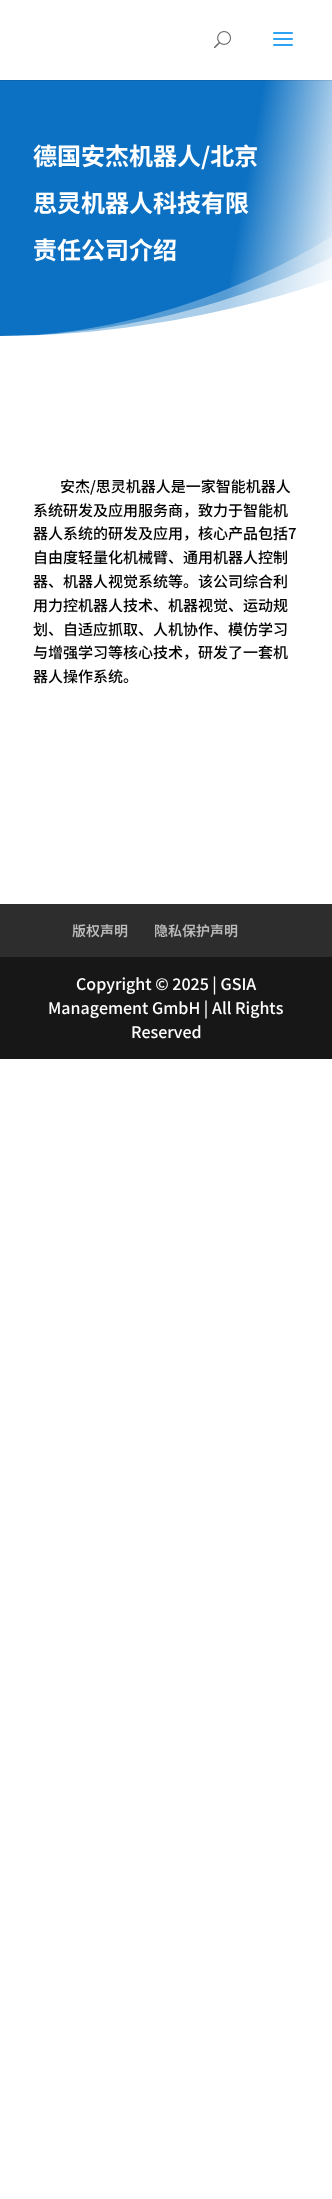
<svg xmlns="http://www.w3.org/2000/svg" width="332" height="2199">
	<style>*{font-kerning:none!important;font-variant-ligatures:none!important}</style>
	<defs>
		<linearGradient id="g1" gradientUnits="userSpaceOnUse" x1="-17" y1="175" x2="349" y2="240"><stop offset="0.7" stop-color="#0C71C3" /><stop offset="1" stop-color="#FFFFFF" /></linearGradient>
		<linearGradient id="g2" gradientUnits="userSpaceOnUse" x1="-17" y1="175" x2="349" y2="240"><stop offset="0.7" stop-color="#0B66B0" /><stop offset="1" stop-color="#E6E6E6" /></linearGradient>
	</defs>
	<rect width="100%" height="100%" fill="#FFFFFF" />
	<image x="214" y="31" width="17" height="18" href="assets/img1.png" />
	<image x="273" y="32" width="20" height="14" href="assets/img2.png" />
	<rect x="0" y="81" width="332" height="255" fill="url(#g1)" />
	<rect x="0" y="80" width="332" height="1" fill="url(#g2)" />
	<g font-family="Noto Sans SC" font-size="24" font-weight="700" fill="#FFFFFF">
		<text x="33" y="165">德国安杰机器人/北京</text>
		<text x="33" y="212">思灵机器人科技有限</text>
	</g>
	<path d="M332 336H0C183 336 332 236 332 236Z" fill="#FFFFFF" fill-opacity="0.3" />
	<path d="M332 336H0C183 336 332 257 332 257Z" fill="#FFFFFF" fill-opacity="0.5" />
	<text x="33" y="259" font-family="Noto Sans SC" font-size="24" font-weight="700" fill="#FFFFFF">责任公司介绍</text>
	<path d="M332 336H0C183 336 332 279 332 279Z" fill="#FFFFFF" />
	<g font-family="Noto Sans SC" font-size="15" font-weight="500" fill="#000000">
		<text x="60" y="492">安杰/思灵机器人是一家智能机器人</text>
		<text x="33" y="516">系统研发及应用服务商，致力于智能机</text>
		<text x="33" y="539">器人系统的研发及应用，核心产品包括7</text>
		<text x="33" y="563">自由度轻量化机械臂、通用机器人控制</text>
		<text x="33" y="587">器、机器人视觉系统等。该公司综合利</text>
		<text x="33" y="611">用力控机器人技术、机器视觉、运动规</text>
		<text x="33" y="635">划、自适应抓取、人机协作、模仿学习</text>
		<text x="33" y="658">与增强学习等核心技术，研发了一套机</text>
		<text x="33" y="682">器人操作系统。</text>
	</g>
	<rect x="0" y="904" width="332" height="53" fill="#2D2D2D" />
	<g font-family="Noto Sans SC" font-size="14" font-weight="600" fill="#BBBBBB">
		<text x="72" y="936">版权声明</text>
		<text x="154" y="936">隐私保护声明</text>
	</g>
	<rect x="0" y="957" width="332" height="102" fill="#171717" />
	<g font-family="Noto Sans SC" font-size="16" font-weight="500" fill="#FFFFFF">
		<text x="76" y="990">Copyright © 2025 | GSIA</text>
		<text x="48" y="1014">Management GmbH | All Rights</text>
		<text x="131" y="1038">Reserved</text>
	</g>
</svg>
